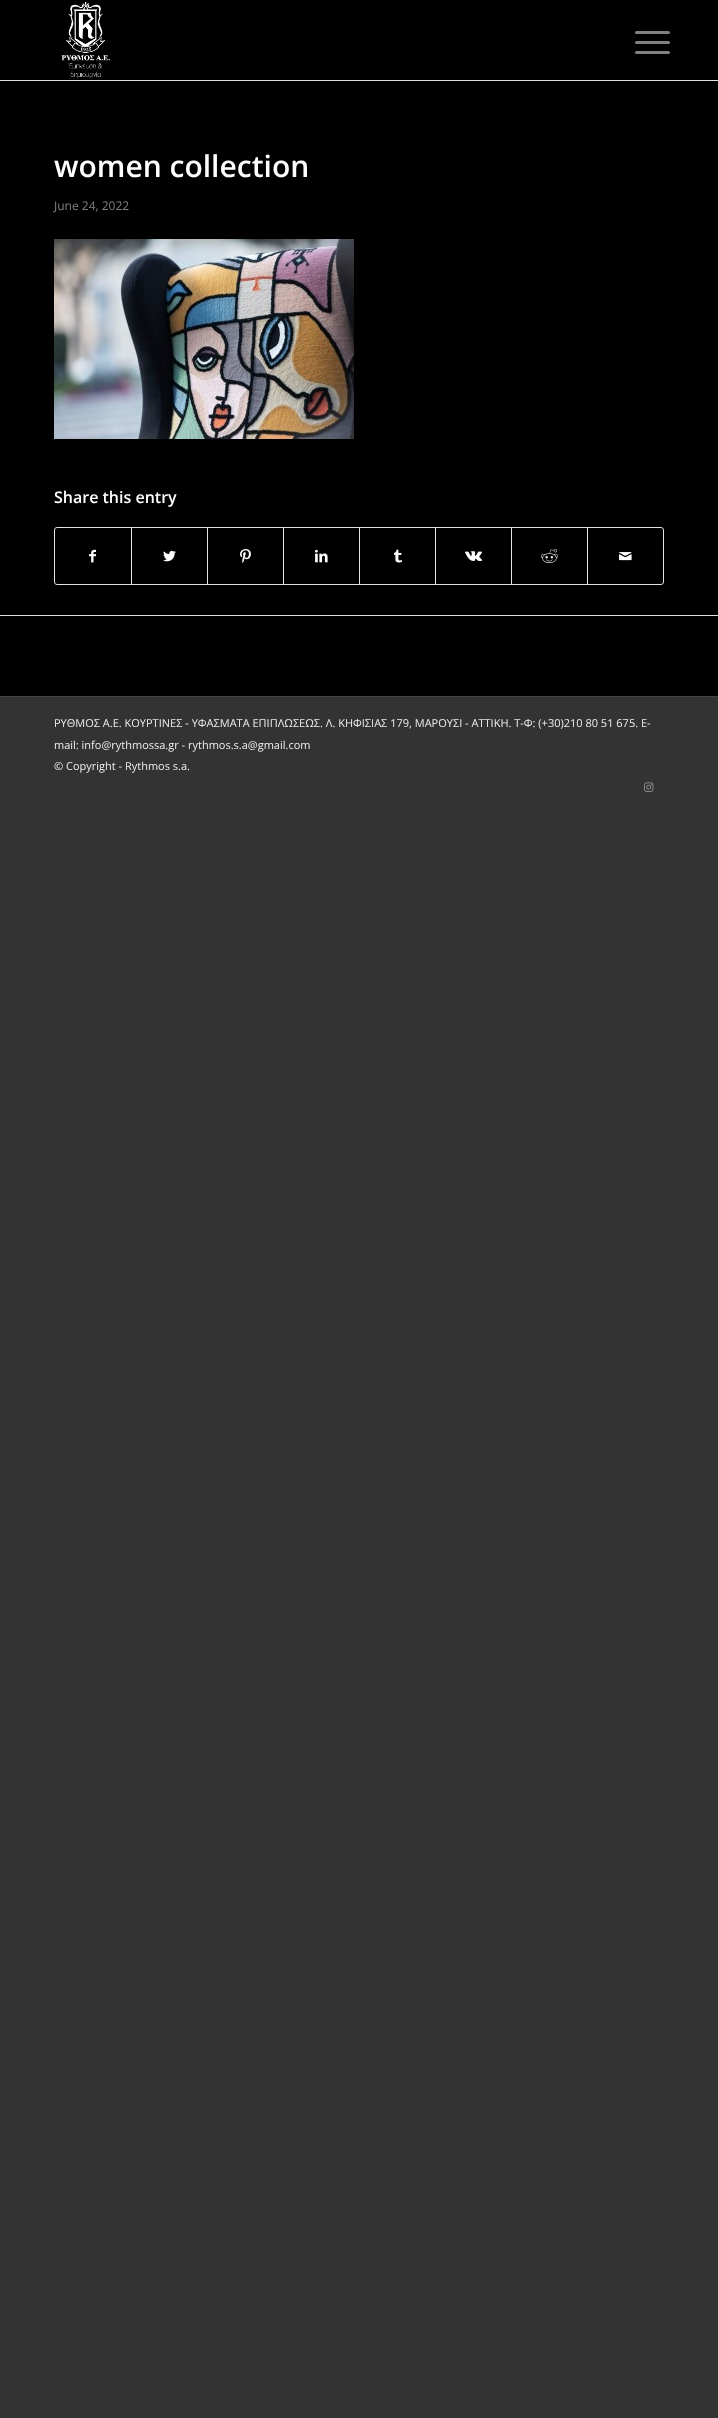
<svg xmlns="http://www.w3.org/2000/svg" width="718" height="2418">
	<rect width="100%" height="100%" fill="#333333" />
	<rect x="0" y="0" width="718" height="696" fill="#000000" />
	<rect x="0" y="80" width="718" height="1" fill="#E1E1E1" />
	<image x="61" y="1" width="49" height="78" href="assets/img1.png" />
	<rect x="635" y="41" width="35" height="3" rx="1.5" fill="#808080" />
	<rect x="635" y="31" width="35" height="3" rx="1.5" fill="#808080" />
	<rect x="635" y="51" width="35" height="3" rx="1.5" fill="#808080" />
	<text x="54" y="177" font-family="Open Sans" font-size="30" font-weight="600" fill="#FFFFFF">women collection</text>
	<text x="54" y="210" font-family="Open Sans" font-size="12" fill="#808080">June 24, 2022</text>
	<image x="54" y="239" width="300" height="200" href="assets/img2.png" />
	<text x="54" y="503" font-family="Open Sans" font-size="16" font-weight="600" fill="#FFFFFF">Share this entry</text>
	<rect x="54.5" y="527.5" width="609" height="57" rx="2.5" fill="none" stroke="#E1E1E1" />
	<image x="89" y="549" width="7" height="14" href="assets/img3.png" />
	<rect x="131" y="528" width="1" height="56" fill="#E1E1E1" />
	<image x="163" y="550" width="13" height="12" href="assets/img4.png" />
	<rect x="207" y="528" width="1" height="56" fill="#E1E1E1" />
	<image x="240" y="549" width="11" height="14" href="assets/img5.png" />
	<rect x="283" y="528" width="1" height="56" fill="#E1E1E1" />
	<image x="315" y="549" width="13" height="14" href="assets/img6.png" />
	<rect x="359" y="528" width="1" height="56" fill="#E1E1E1" />
	<image x="394" y="549" width="8" height="14" href="assets/img7.png" />
	<rect x="435" y="528" width="1" height="56" fill="#E1E1E1" />
	<image x="465" y="551" width="17" height="10" href="assets/img8.png" />
	<rect x="511" y="528" width="1" height="56" fill="#E1E1E1" />
	<image x="541" y="549" width="17" height="15" href="assets/img9.png" />
	<rect x="587" y="528" width="1" height="56" fill="#E1E1E1" />
	<image x="619" y="552" width="13" height="9" href="assets/img10.png" />
	<rect x="0" y="615" width="718" height="1" fill="#E1E1E1" />
	<rect x="0" y="696" width="718" height="1" fill="#444444" />
	<g font-family="Open Sans" font-size="11" fill="#EEEEEE">
		<text x="54" y="727">ΡΥΘΜΟΣ Α.Ε. ΚΟΥΡΤΙΝΕΣ - ΥΦΑΣΜΑΤΑ ΕΠΙΠΛΩΣΕΩΣ. Λ. ΚΗΦΙΣΙΑΣ 179, ΜΑΡΟΥΣΙ - ΑΤΤΙΚΗ. Τ-Φ: (+30)210 80 51 675. Ε-</text>
		<text x="54" y="749">mail: info@rythmossa.gr - rythmos.s.a@gmail.com</text>
		<text x="54" y="770">© Copyright - Rythmos s.a.</text>
	</g>
	<image x="644" y="782" width="10" height="10" href="assets/img11.png" />
</svg>
